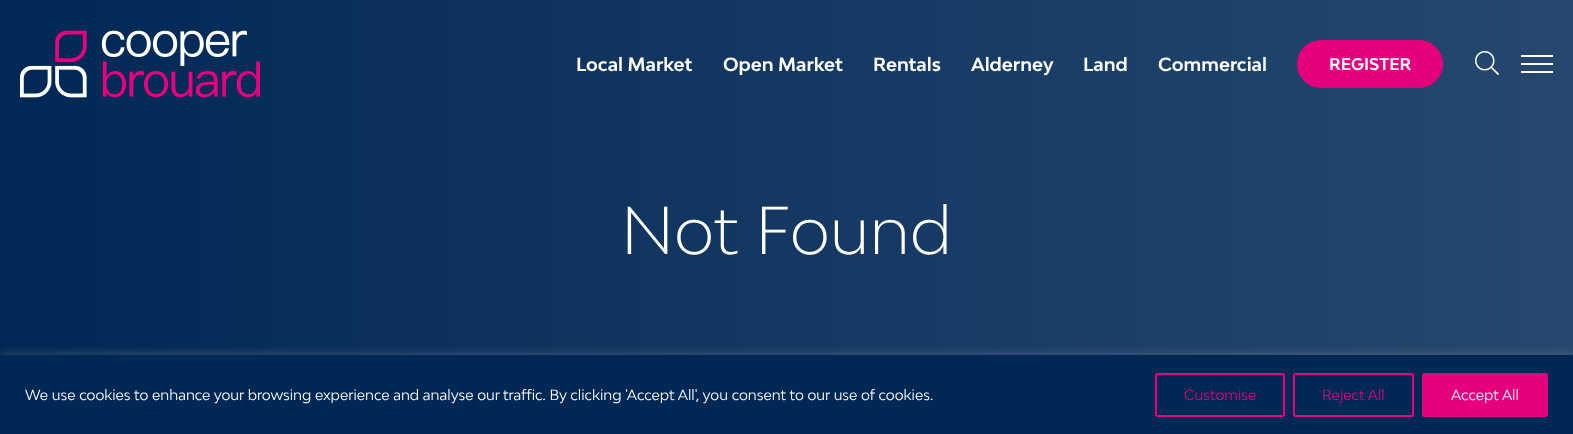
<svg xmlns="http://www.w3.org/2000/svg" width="1573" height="434">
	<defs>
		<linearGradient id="g1" gradientUnits="userSpaceOnUse" x1="0" y1="195" x2="1573" y2="194"><stop offset="0" stop-color="#002855" /><stop offset="0.25" stop-color="#0A305B" /><stop offset="0.5" stop-color="#143862" /><stop offset="0.75" stop-color="#1D4068" /><stop offset="1" stop-color="#26486E" /></linearGradient>
	</defs>
	<rect width="100%" height="100%" fill="#FFFFFF" />
	<rect x="0" y="0" width="1573" height="355" fill="url(#g1)" />
	<image x="20" y="30" width="240" height="68" href="assets/img1.png" />
	<g font-family="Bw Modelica" font-size="18" font-weight="700" fill="#FFFFFF">
		<text x="576" y="71">Local Market</text>
		<text x="723" y="71">Open Market</text>
		<text x="873" y="71">Rentals</text>
		<text x="971" y="71">Alderney</text>
		<text x="1083" y="71">Land</text>
		<text x="1158" y="71">Commercial</text>
	</g>
	<rect x="1297" y="40" width="146" height="48" rx="24" fill="#E6007E" />
	<text x="1329" y="70" font-family="Bw Modelica" font-size="16" font-weight="700" fill="#FFFFFF">REGISTER</text>
	<image x="1475" y="51" width="24" height="24" href="assets/img2.png" />
	<rect x="1521" y="55" width="32" height="2" fill="#FFFFFF" />
	<rect x="1521" y="63" width="32" height="2" fill="#FFFFFF" />
	<rect x="1521" y="71" width="32" height="2" fill="#FFFFFF" />
	<text x="621" y="254" font-family="Bw Modelica" font-size="64" font-weight="300" fill="#FFFFFF">Not Found</text>
	<rect x="0" y="354" width="1573" height="79" fill="#ACABAB" fill-opacity="0.3" filter="blur(5px)" />
	<rect x="0" y="355" width="1573" height="79" fill="#002855" />
	<text x="25" y="400" font-family="Bw Modelica" font-size="14" fill="#FFFFFF">We use cookies to enhance your browsing experience and analyse our traffic. By clicking 'Accept All', you consent to our use of cookies.</text>
	<rect x="1156" y="374" width="128" height="42" rx="1" fill="none" stroke="#E6007E" stroke-width="2" />
	<text x="1184" y="400" font-family="Bw Modelica" font-size="14" fill="#E6007E">Customise</text>
	<rect x="1294" y="374" width="119" height="42" rx="1" fill="none" stroke="#E6007E" stroke-width="2" />
	<text x="1322" y="400" font-family="Bw Modelica" font-size="14" fill="#E6007E">Reject All</text>
	<rect x="1423" y="374" width="124" height="42" rx="1" fill="#E6007E" stroke="#E6007E" stroke-width="2" />
	<text x="1451" y="400" font-family="Bw Modelica" font-size="14" fill="#FFFFFF">Accept All</text>
</svg>
